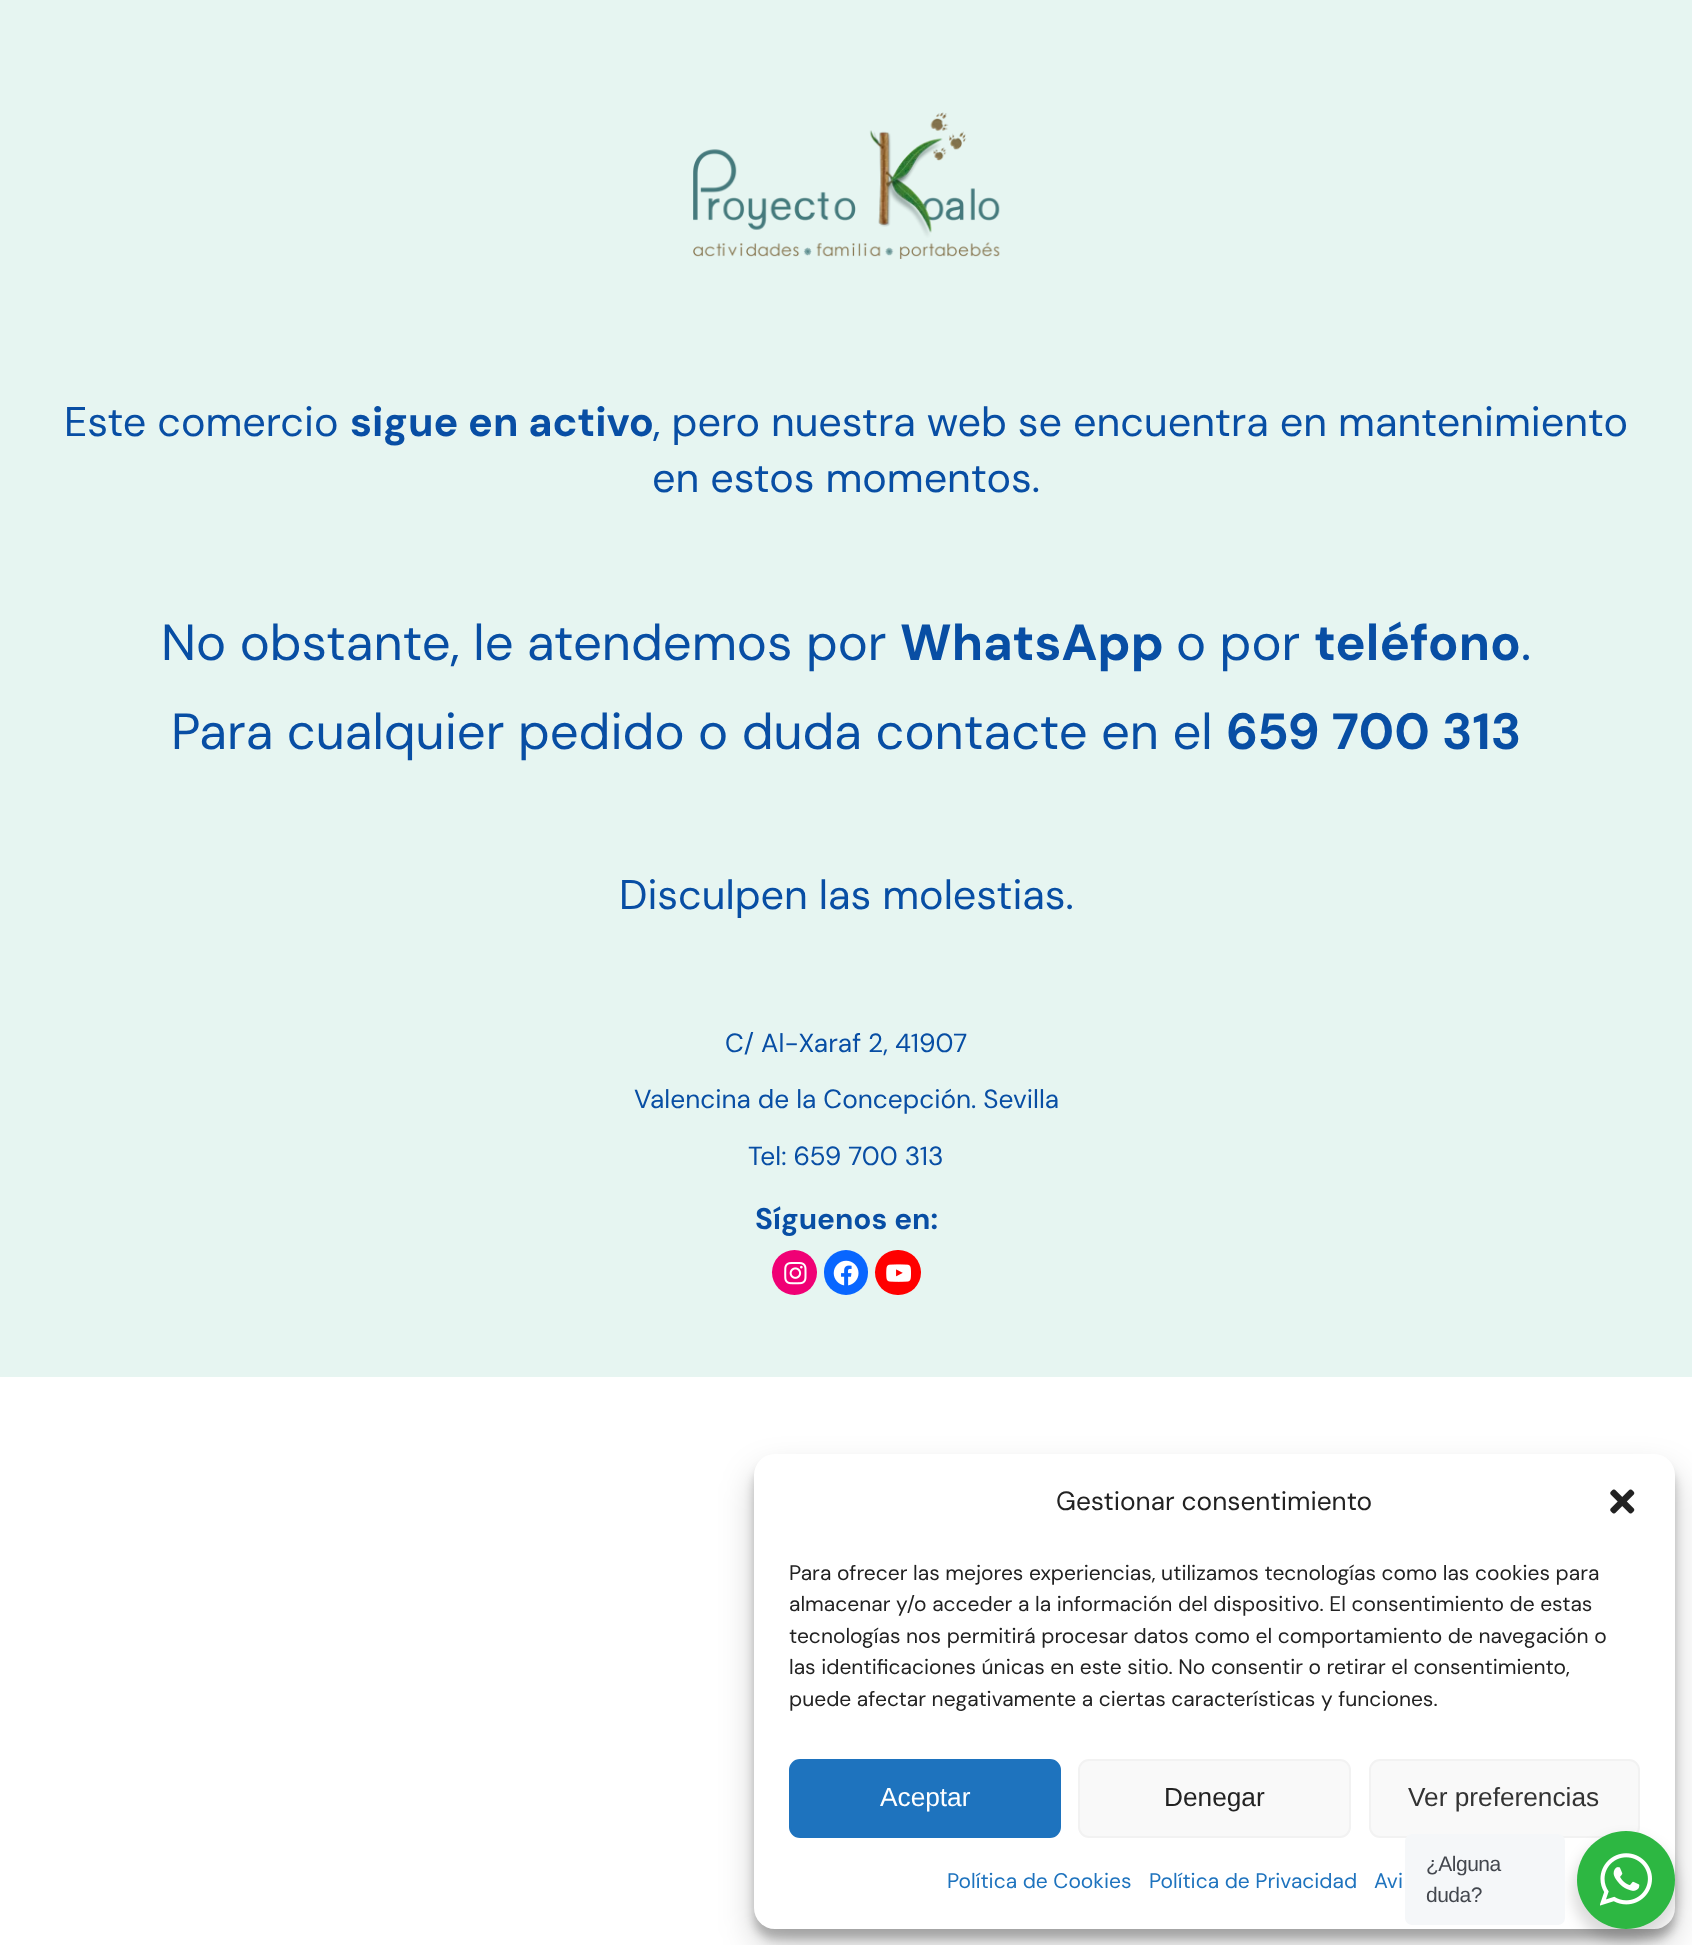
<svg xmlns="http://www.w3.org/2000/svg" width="1692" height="1945">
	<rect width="100%" height="100%" fill="#FFFFFF" />
	<rect x="0" y="0" width="1692" height="1377" fill="#E6F5F1" />
	<image x="693" y="112" width="307" height="147" href="assets/img1.png" />
	<text x="64" y="436" font-family="DM Sans" font-size="41.35" fill="#084EA4">Este comercio</text>
	<text x="350" y="436" font-family="DM Sans" font-size="41.35" font-weight="700" fill="#084EA4">sigue en activo</text>
	<g font-family="DM Sans" font-size="41.35" fill="#084EA4">
		<text x="653" y="436">, pero nuestra web se encuentra en mantenimiento</text>
		<text x="652" y="492">en estos momentos.</text>
	</g>
	<text x="161" y="660" font-family="DM Sans" font-size="50.75" fill="#084EA4">No obstante, le atendemos por</text>
	<text x="900" y="660" font-family="DM Sans" font-size="50.75" font-weight="700" fill="#084EA4">WhatsApp</text>
	<text x="1176" y="660" font-family="DM Sans" font-size="50.75" fill="#084EA4">o por</text>
	<text x="1314" y="660" font-family="DM Sans" font-size="50.75" font-weight="700" fill="#084EA4">teléfono</text>
	<g font-family="DM Sans" font-size="50.75" fill="#084EA4">
		<text x="1521" y="660">.</text>
		<text x="171" y="749">Para cualquier pedido o duda contacte en el</text>
	</g>
	<text x="1226" y="749" font-family="DM Sans" font-size="50.75" font-weight="700" fill="#084EA4">659 700 313</text>
	<text x="619" y="909" font-family="DM Sans" font-size="41.35" fill="#084EA4">Disculpen las molestias.</text>
	<g font-family="DM Sans" font-size="26.25" fill="#084EA4">
		<text x="725" y="1052">C/ Al-Xaraf 2, 41907</text>
		<text x="634" y="1108">Valencina de la Concepción. Sevilla</text>
		<text x="748" y="1165">Tel: 659 700 313</text>
	</g>
	<text x="755" y="1229" font-family="DM Sans" font-size="29.75" font-weight="700" fill="#084EA4">Síguenos en:</text>
	<circle cx="794.5" cy="1272.5" r="22.5" fill="#F00075" />
	<image x="784" y="1262" width="23" height="23" href="assets/img2.png" />
	<rect x="824" y="1250" width="44" height="45" rx="22" fill="#0866FF" />
	<image x="833" y="1260" width="26" height="26" href="assets/img3.png" />
	<rect x="875" y="1250" width="46" height="45" rx="22.5" fill="#FF0000" />
	<image x="886" y="1264" width="25" height="18" href="assets/img4.png" />
	<rect x="754" y="1465" width="921" height="474" rx="21" fill="#000000" fill-opacity="0.23" filter="blur(5px)" />
	<rect x="754" y="1472" width="921" height="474" rx="21" fill="#000000" fill-opacity="0.19" filter="blur(17.5px)" />
	<rect x="754" y="1454" width="921" height="475" rx="21" fill="#FFFFFF" />
	<text x="1056" y="1510" font-family="DM Sans" font-size="26.25" fill="#222222">Gestionar consentimiento</text>
	<image x="1610" y="1489" width="25" height="25" href="assets/img5.png" />
	<g font-family="DM Sans" font-size="21" fill="#222222">
		<text x="789" y="1580">Para ofrecer las mejores experiencias, utilizamos tecnologías como las cookies para</text>
		<text x="789" y="1611">almacenar y/o acceder a la información del dispositivo. El consentimiento de estas</text>
		<text x="789" y="1643">tecnologías nos permitirá procesar datos como el comportamiento de navegación o</text>
		<text x="789" y="1674">las identificaciones únicas en este sitio. No consentir o retirar el consentimiento,</text>
		<text x="789" y="1706">puede afectar negativamente a ciertas características y funciones.</text>
	</g>
	<rect x="790" y="1760" width="270" height="77" rx="10" fill="#1E73BE" stroke="#1E73BE" stroke-width="2" />
	<text x="880" y="1806" font-family="Liberation Sans" font-size="26.25" fill="#FFFFFF">Aceptar</text>
	<rect x="1079" y="1760" width="271" height="77" rx="10" fill="#F9F9F9" stroke="#F2F2F2" stroke-width="2" />
	<text x="1164" y="1806" font-family="Liberation Sans" font-size="26.25" fill="#222222">Denegar</text>
	<rect x="1370" y="1760" width="269" height="77" rx="10" fill="#F9F9F9" stroke="#F2F2F2" stroke-width="2" />
	<text x="1408" y="1806" font-family="Liberation Sans" font-size="26.25" fill="#333333">Ver preferencias</text>
	<g font-family="DM Sans" font-size="21" fill="#1E73BE">
		<text x="947" y="1888">Política de Cookies</text>
		<text x="1149" y="1888">Política de Privacidad</text>
		<text x="1374" y="1888">Avi</text>
	</g>
	<rect x="1573" y="1838" width="105" height="105" rx="52.5" fill="#000000" fill-opacity="0.14" filter="blur(7px)" />
	<rect x="1405" y="1834" width="160" height="91" rx="7" fill="#F5F7F9" />
	<g font-family="Liberation Sans" font-size="21" letter-spacing="-0.5" fill="#43474E">
		<text x="1426" y="1871">¿Alguna</text>
		<text x="1426" y="1902">duda?</text>
	</g>
	<circle cx="1626" cy="1880" r="49" fill="#2DB742" />
	<image x="1600" y="1853" width="52" height="53" href="assets/img6.png" />
</svg>
